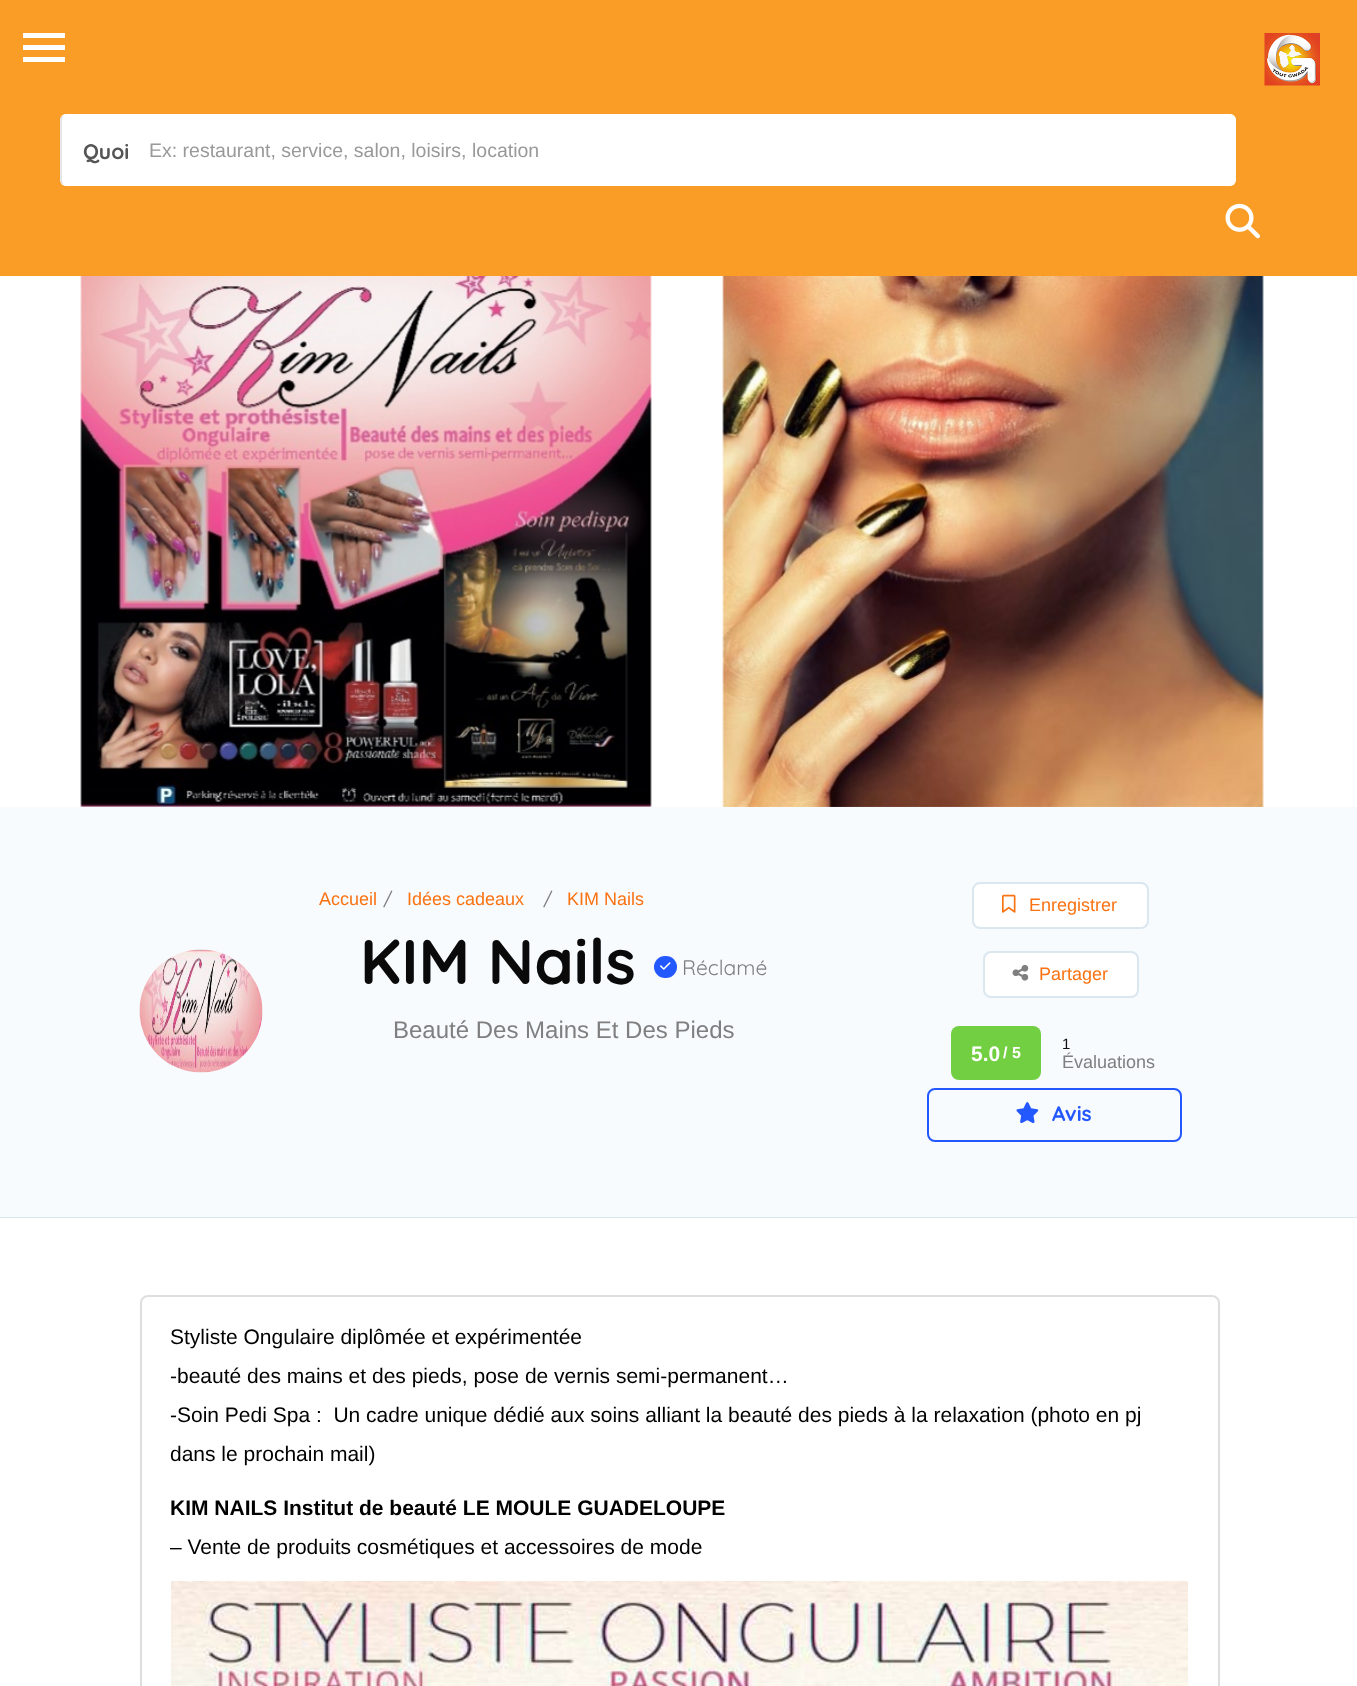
<svg xmlns="http://www.w3.org/2000/svg" width="1357" height="1686">
	<rect width="100%" height="100%" fill="#F7FBFE" />
	<rect x="0" y="0" width="1357" height="276" fill="#FA9D26" />
	<rect x="23" y="33" width="42" height="5" fill="#FFFFFF" />
	<rect x="23" y="45" width="42" height="5" fill="#FFFFFF" />
	<rect x="23" y="57" width="42" height="5" fill="#FFFFFF" />
	<image x="1264" y="33" width="56" height="53" href="assets/img1.png" />
	<rect x="60" y="114" width="1176" height="72" rx="6" fill="#FFFFFF" />
	<path d="M62.5 116.5C63.5 115.5 64.5 115 66 115H1230C1231.5 115 1232.5 115.5 1233.5 116.5C1234.5 117.5 1235 118.5 1235 120V180C1235 181.5 1234.5 182.5 1233.5 183.5C1232.5 184.5 1231.5 185 1230 185H66C64.5 185 63.5 184.5 62.5 183.5" fill="none" stroke="#FFFFFF" stroke-width="1.5" />
	<path d="M62.5 183.5C61.5 182.5 61 181.5 61 180V120C61 118.5 61.5 117.5 62.5 116.5" fill="none" stroke="#DEDEDE" stroke-width="1.5" />
	<text x="83" y="159" font-family="Quicksand" font-size="21" font-weight="700" fill="#555555">Quoi</text>
	<text x="149" y="157" font-family="Liberation Sans" font-size="19.5" fill="#999999">Ex: restaurant, service, salon, loisirs, location</text>
	<image x="1225" y="203" width="35" height="36" href="assets/img2.png" />
	<rect x="0" y="276" width="1357" height="531" fill="#FFFFFF" />
	<image x="80" y="276" width="572" height="531" href="assets/img3.png" />
	<image x="722" y="276" width="542" height="531" href="assets/img4.png" />
	<rect x="0" y="1217" width="1357" height="1" fill="#DBE7EF" />
	<text x="319" y="905" font-family="Liberation Sans" font-size="18" fill="#F97313">Accueil</text>
	<text x="383" y="905" font-family="Quicksand" font-size="18" font-weight="500" fill="#7F7F7F">/</text>
	<text x="407" y="905" font-family="Liberation Sans" font-size="18" fill="#F97313">Idées cadeaux</text>
	<text x="543" y="905" font-family="Quicksand" font-size="18" font-weight="500" fill="#7F7F7F">/</text>
	<text x="567" y="905" font-family="Liberation Sans" font-size="18" fill="#F97313">KIM Nails</text>
	<image x="139" y="949" width="124" height="124" href="assets/img5.png" />
	<text x="360" y="984" font-family="Quicksand" font-size="63" font-weight="700" fill="#0A0A0A">KIM Nails</text>
	<rect x="654" y="956" width="23" height="22" rx="11" fill="#2458FF" />
	<image x="660" y="962" width="11" height="8" href="assets/img6.png" />
	<text x="682" y="975" font-family="Quicksand" font-size="21" fill="#7F7F7F">Réclamé</text>
	<text x="393" y="1038" font-family="Liberation Sans" font-size="24" fill="#7F7F7F">Beauté Des Mains Et Des Pieds</text>
	<rect x="973" y="883" width="175" height="45" rx="7" fill="#FFFFFF" stroke="#DBE7EF" stroke-width="2" />
	<image x="1002" y="894" width="14" height="19" href="assets/img7.png" />
	<text x="1029" y="911" font-family="Liberation Sans" font-size="18" fill="#F97313">Enregistrer</text>
	<rect x="984" y="952" width="154" height="45" rx="7" fill="#FFFFFF" stroke="#DBE7EF" stroke-width="2" />
	<image x="1012" y="964" width="17" height="17" href="assets/img8.png" />
	<text x="1039" y="980" font-family="Liberation Sans" font-size="18" fill="#F97313">Partager</text>
	<rect x="951" y="1026" width="90" height="54" rx="8" fill="#73CF42" />
	<text x="971" y="1061" font-family="Liberation Sans" font-size="21" font-weight="700" fill="#FFFFFF">5.0</text>
	<text x="1003" y="1058" font-family="Liberation Sans" font-size="16" font-weight="700" fill="#FFFFFF">/ 5</text>
	<text x="1062" y="1049" font-family="Liberation Sans" font-size="15" fill="#111111">1</text>
	<text x="1062" y="1068" font-family="Liberation Sans" font-size="18" fill="#7F7F7F">Évaluations</text>
	<rect x="928" y="1089" width="253" height="52" rx="7" fill="none" stroke="#2458FF" stroke-width="2" />
	<image x="1016" y="1102" width="23" height="22" href="assets/img9.png" />
	<text x="1052" y="1121" font-family="Quicksand" font-size="21" font-weight="700" fill="#2458FF">Avis</text>
	<rect x="0" y="1218" width="1357" height="468" fill="#FFFFFF" />
	<rect x="141" y="1296" width="1078" height="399" rx="7" fill="none" stroke="#DEDEDE" stroke-width="2" />
	<g font-family="Liberation Sans" font-size="21" fill="#000000">
		<text x="170" y="1344">Styliste Ongulaire diplômée et expérimentée</text>
		<text x="170" y="1383">-beauté des mains et des pieds, pose de vernis semi-permanent…</text>
		<text x="170" y="1422" xml:space="preserve">-Soin Pedi Spa :  Un cadre unique dédié aux soins alliant la beauté des pieds à la relaxation (photo en pj</text>
		<text x="170" y="1461">dans le prochain mail)</text>
	</g>
	<text x="170" y="1515" font-family="Liberation Sans" font-size="21" font-weight="700" fill="#000000">KIM NAILS Institut de beauté LE MOULE GUADELOUPE</text>
	<text x="170" y="1554" font-family="Liberation Sans" font-size="21" fill="#000000">– Vente de produits cosmétiques et accessoires de mode</text>
	<image x="171" y="1581" width="1017" height="105" href="assets/img10.png" />
</svg>
